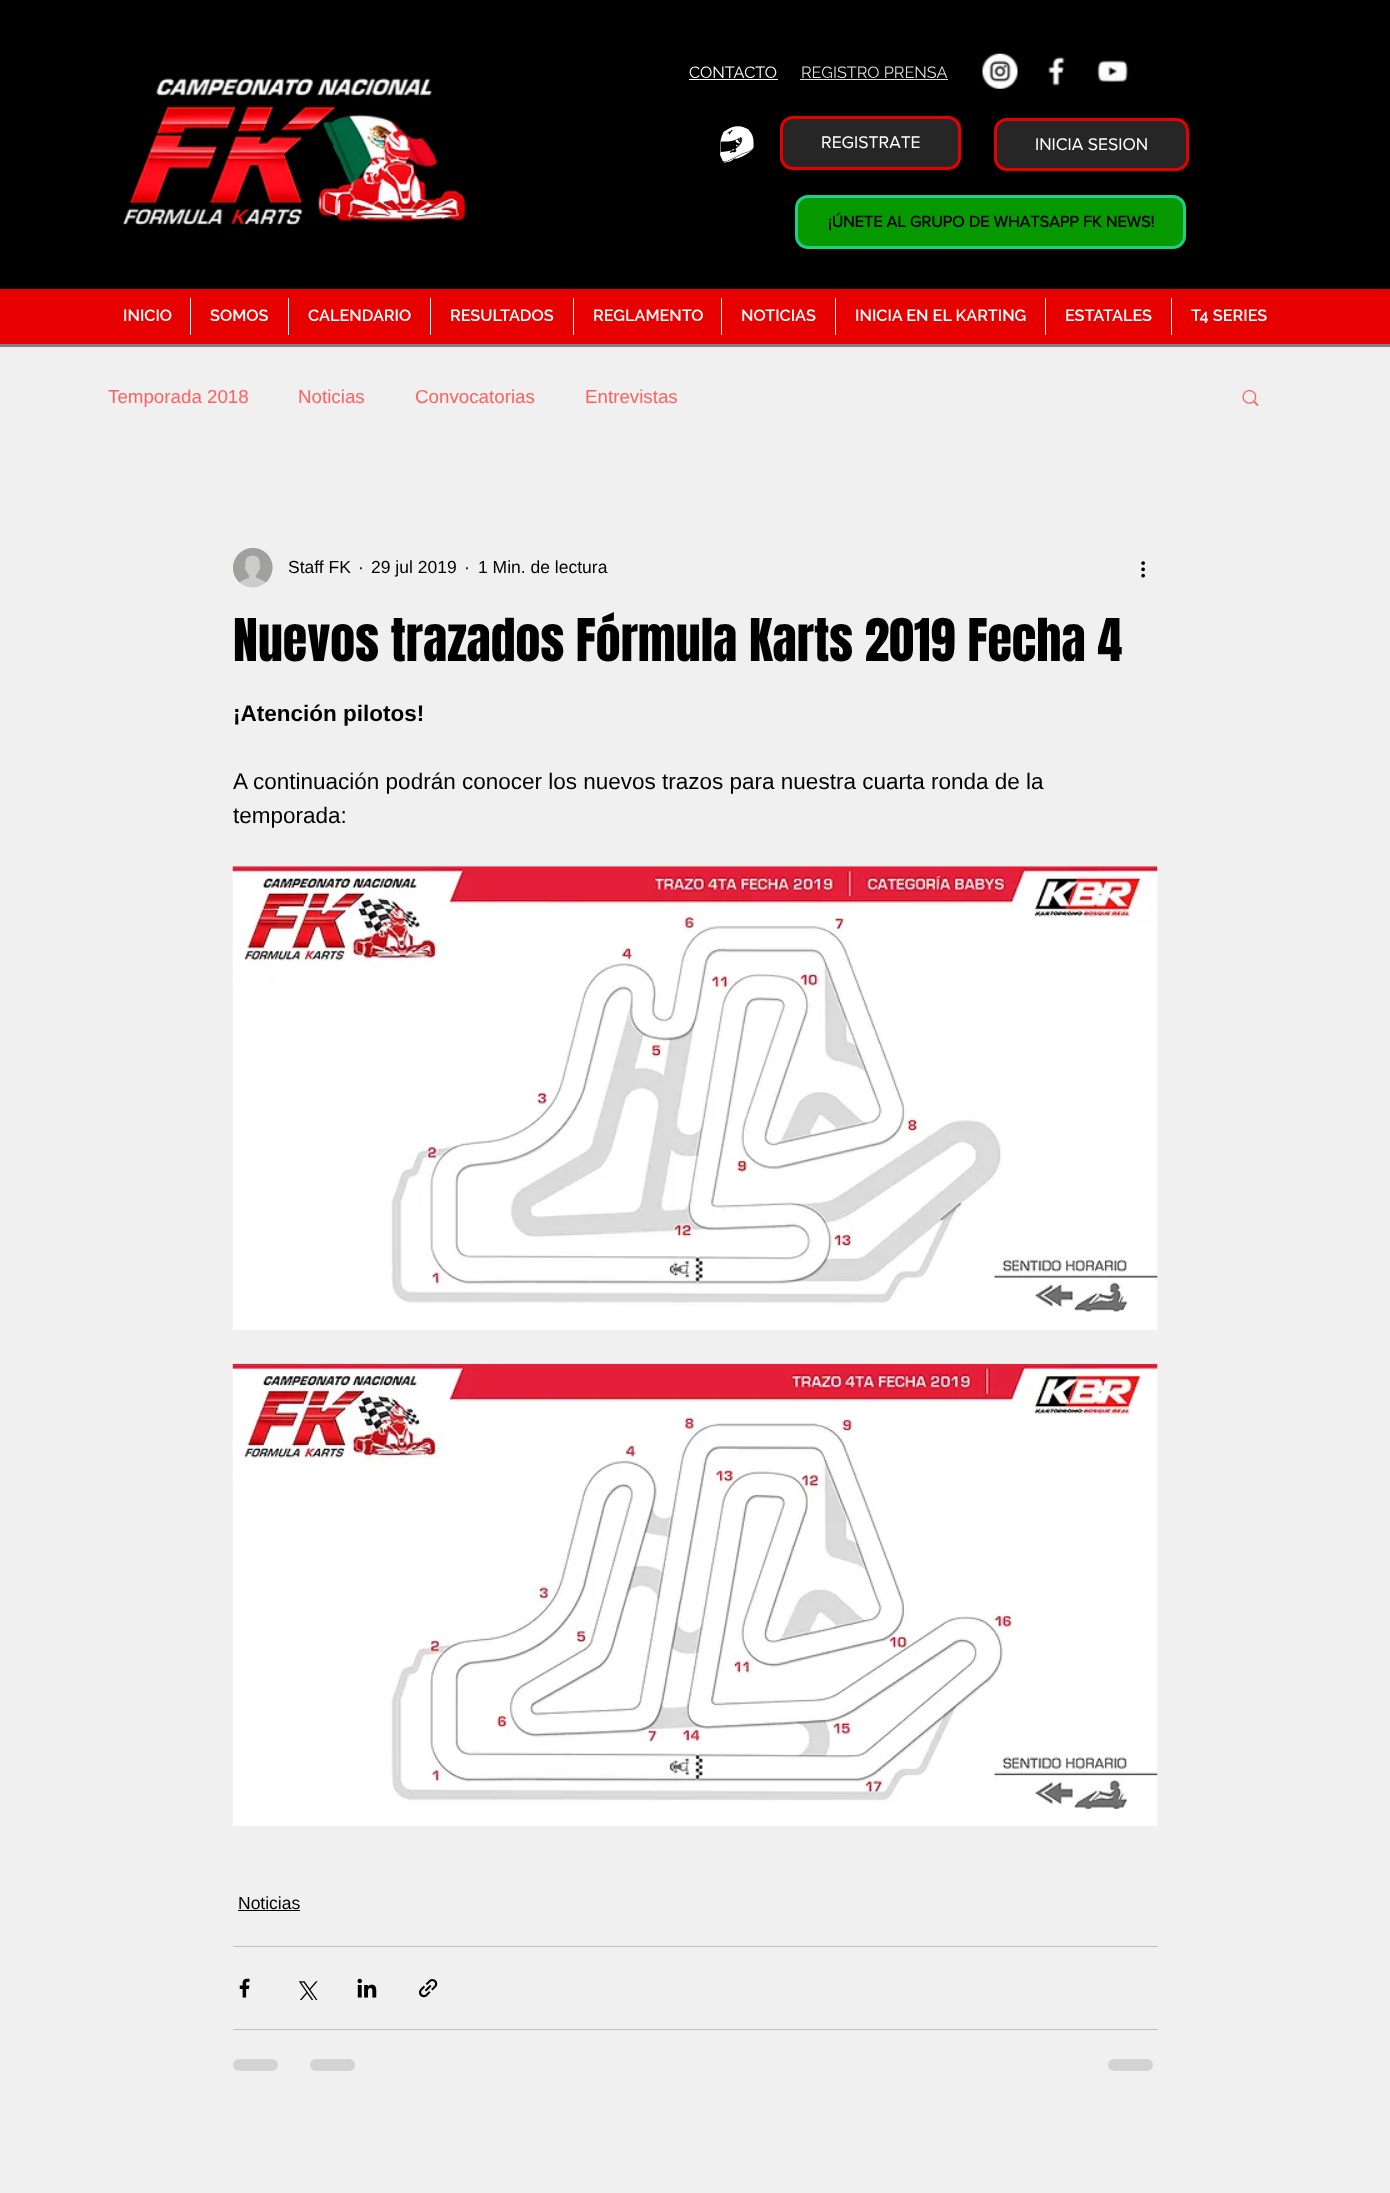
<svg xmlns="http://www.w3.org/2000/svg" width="1390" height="2193">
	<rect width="100%" height="100%" fill="#F0F0F0" />
	<rect x="0" y="0" width="1390" height="289" fill="#000000" />
	<text x="689" y="78" font-family="Raleway" font-size="16.25" fill="#FFFFFF">CONTACTO</text>
	<rect x="689" y="79" width="89" height="1" fill="#FFFFFF" />
	<text x="801" y="78" font-family="Raleway" font-size="16.25" fill="#DEDEDE">REGISTRO PRENSA</text>
	<rect x="800" y="79" width="148" height="1" fill="#DEDEDE" />
	<image x="982" y="53" width="36" height="36" href="assets/img1.png" />
	<image x="1048" y="56" width="17" height="30" href="assets/img2.png" />
	<image x="1097" y="60" width="32" height="23" href="assets/img3.png" />
	<image x="123" y="78" width="343" height="148" href="assets/img4.png" />
	<image x="720" y="126" width="34" height="37" href="assets/img5.png" />
	<rect x="781.5" y="117.5" width="178" height="51" rx="11.5" fill="#262626" stroke="#E60000" stroke-width="3" />
	<text x="821" y="148" font-family="'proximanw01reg'" font-size="17.5" fill="#FFFFFF">REGISTRATE</text>
	<rect x="995.5" y="119.5" width="192" height="50" rx="11.5" fill="#262626" stroke="#E60000" stroke-width="3" />
	<text x="1035" y="150" font-family="'proximanw01reg'" font-size="17.5" fill="#FFFFFF">INICIA SESION</text>
	<rect x="796.5" y="196.5" width="388" height="51" rx="11.5" fill="#069A00" stroke="#20CE88" stroke-width="3" />
	<text x="828" y="227" font-family="'proximanw01reg'" font-size="16.25" font-weight="700" fill="#000000">¡ÚNETE AL GRUPO DE WHATSAPP FK NEWS!</text>
	<rect x="0" y="289" width="1390" height="55" fill="#E60000" />
	<text x="123" y="321" font-family="Raleway" font-size="16.25" font-weight="600" fill="#FFFFFF">INICIO</text>
	<rect x="190" y="298" width="1" height="37" fill="#FFFFFF" />
	<text x="210" y="321" font-family="Raleway" font-size="16.25" font-weight="600" fill="#FFFFFF">SOMOS</text>
	<rect x="288" y="298" width="1" height="37" fill="#FFFFFF" />
	<text x="308" y="321" font-family="Raleway" font-size="16.25" font-weight="600" fill="#FFFFFF">CALENDARIO</text>
	<rect x="430" y="298" width="1" height="37" fill="#FFFFFF" />
	<text x="450" y="321" font-family="Raleway" font-size="16.25" font-weight="600" fill="#FFFFFF">RESULTADOS</text>
	<rect x="573" y="298" width="1" height="37" fill="#FFFFFF" />
	<text x="593" y="321" font-family="Raleway" font-size="16.25" font-weight="600" fill="#FFFFFF">REGLAMENTO</text>
	<rect x="721" y="298" width="1" height="37" fill="#FFFFFF" />
	<text x="741" y="321" font-family="Raleway" font-size="16.25" font-weight="600" fill="#FFFFFF">NOTICIAS</text>
	<rect x="835" y="298" width="1" height="37" fill="#FFFFFF" />
	<text x="855" y="321" font-family="Raleway" font-size="16.25" font-weight="600" fill="#FFFFFF">INICIA EN EL KARTING</text>
	<rect x="1045" y="298" width="1" height="37" fill="#FFFFFF" />
	<text x="1065" y="321" font-family="Raleway" font-size="16.25" font-weight="600" fill="#FFFFFF">ESTATALES</text>
	<rect x="1171" y="298" width="1" height="37" fill="#FFFFFF" />
	<text x="1191" y="321" font-family="Raleway" font-size="16.25" font-weight="600" fill="#FFFFFF">T4 SERIES</text>
	<rect x="0" y="344" width="1390" height="3" fill="#818181" />
	<g font-family="Liberation Sans" font-size="18.75" fill="#FF6161">
		<text x="108" y="403">Temporada 2018</text>
		<text x="298" y="403">Noticias</text>
		<text x="415" y="403">Convocatorias</text>
		<text x="585" y="403">Entrevistas</text>
	</g>
	<image x="1242" y="390" width="17" height="17" href="assets/img6.png" />
	<image x="233" y="548" width="40" height="40" href="assets/img7.png" />
	<g font-family="Liberation Sans" font-size="17.5" fill="#000000">
		<text x="288" y="573">Staff FK</text>
		<text x="358" y="573">·</text>
		<text x="371" y="573">29 jul 2019</text>
		<text x="464" y="573">·</text>
		<text x="478" y="573">1 Min. de lectura</text>
	</g>
	<image x="1141" y="561" width="4" height="17" href="assets/img8.png" />
	<text x="233" y="661" font-family="Anton" font-size="50" fill="#000000">Nuevos trazados Fórmula Karts 2019 Fecha 4</text>
	<text x="233" y="721" font-family="Liberation Sans" font-size="22.5" font-weight="700" fill="#000000">¡Atención pilotos!</text>
	<g font-family="Liberation Sans" font-size="22.5" fill="#000000">
		<text x="233" y="789">A continuación podrán conocer los nuevos trazos para nuestra cuarta ronda de la</text>
		<text x="233" y="823">temporada:</text>
	</g>
	<image x="232" y="866" width="926" height="464" href="assets/img9.png" />
	<image x="232" y="1363" width="926" height="463" href="assets/img10.png" />
	<text x="238" y="1909" font-family="Liberation Sans" font-size="17.5" fill="#000000">Noticias</text>
	<rect x="238" y="1910" width="62" height="1" fill="#000000" />
	<rect x="233" y="1946" width="925" height="1" fill="#C0C0C0" />
	<image x="239" y="1978" width="11" height="20" href="assets/img11.png" />
	<image x="298" y="1981" width="20" height="19" href="assets/img12.png" />
	<image x="357" y="1978" width="20" height="20" href="assets/img13.png" />
	<image x="419" y="1979" width="19" height="19" href="assets/img14.png" />
	<rect x="233" y="2029" width="925" height="1" fill="#C0C0C0" />
	<rect x="233" y="2059" width="45" height="12" rx="6" fill="#D3D3D3" />
	<rect x="310" y="2059" width="45" height="12" rx="6" fill="#D3D3D3" />
	<rect x="1108" y="2059" width="45" height="12" rx="6" fill="#D3D3D3" />
</svg>
